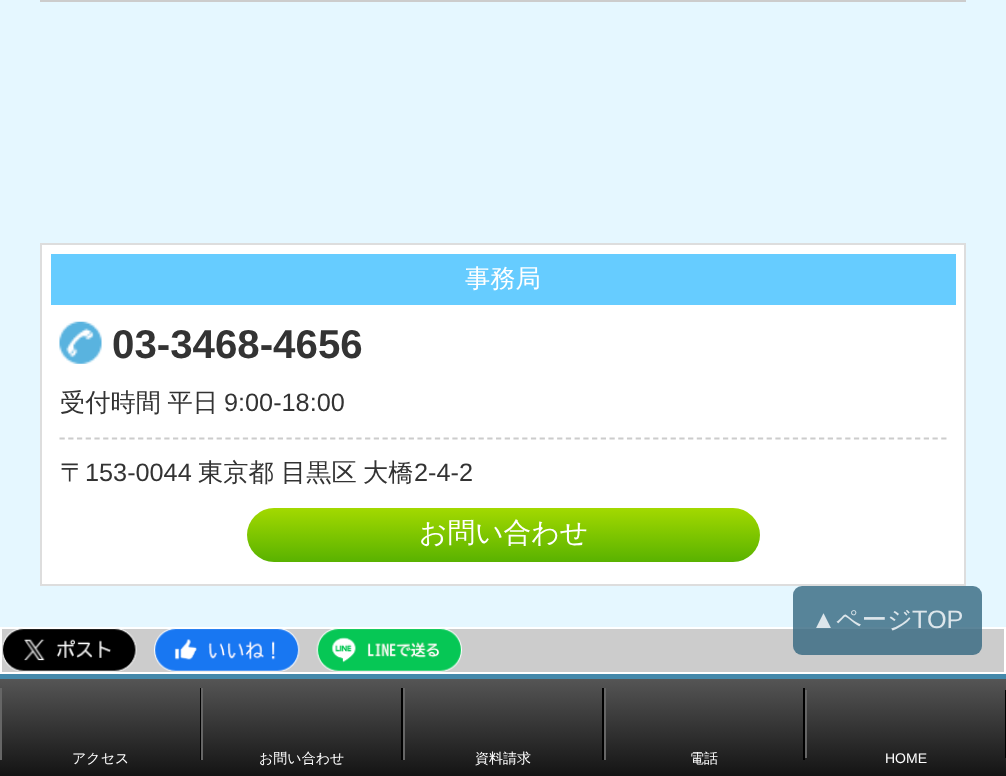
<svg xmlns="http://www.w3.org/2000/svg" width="1006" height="776">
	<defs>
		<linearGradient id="g1" gradientUnits="userSpaceOnUse" x1="503" y1="508" x2="503" y2="562"><stop offset="0" stop-color="#A3D900" /><stop offset="1" stop-color="#59B200" /></linearGradient>
		<linearGradient id="g2" gradientUnits="userSpaceOnUse" x1="503" y1="679" x2="503" y2="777"><stop offset="0" stop-color="#555555" /><stop offset="1" stop-color="#131313" /></linearGradient>
	</defs>
	<rect width="100%" height="100%" fill="#E5F7FF" />
	<rect x="41" y="-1" width="924" height="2" fill="none" stroke="#CCCCCC" stroke-width="2" />
	<rect x="41" y="244" width="924" height="341" fill="#FFFFFF" stroke="#DDDDDD" stroke-width="2" />
	<rect x="51" y="254" width="905" height="51" fill="#66CCFF" />
	<text x="465" y="287" font-family="WenQuanYi Zen Hei" font-size="25.25" font-weight="500" fill="#FFFFFF">事務局</text>
	<image x="59" y="321" width="43" height="43" href="assets/img1.png" />
	<text x="112" y="358" font-family="Liberation Sans" font-size="40.25" font-weight="700" fill="#333333">03-3468-4656</text>
	<text x="60" y="411" word-spacing="-1" font-family="WenQuanYi Zen Hei" font-size="25.25" font-weight="500" fill="#333333">受付時間 平日</text>
	<text x="224" y="411" font-family="Liberation Sans" font-size="25.25" fill="#333333">9:00-18:00</text>
	<path d="M59.5 438.5H947" fill="none" stroke="#CCCCCC" stroke-width="1.8" stroke-dasharray="5.25 3.48" />
	<text x="60" y="481" font-family="WenQuanYi Zen Hei" font-size="25.25" font-weight="500" fill="#333333">〒</text>
	<text x="85" y="481" font-family="Liberation Sans" font-size="25.25" fill="#333333">153-0044</text>
	<g font-family="WenQuanYi Zen Hei" font-size="25.25" font-weight="500" fill="#333333">
		<text x="198" y="481">東京都</text>
		<text x="281" y="481">目黒区</text>
		<text x="363" y="481">大橋</text>
	</g>
	<text x="414" y="481" font-family="Liberation Sans" font-size="25.25" fill="#333333">2-4-2</text>
	<rect x="247" y="508" width="513" height="54" rx="27" fill="url(#g1)" />
	<text x="419" y="542" font-family="WenQuanYi Zen Hei" font-size="27.75" font-weight="500" fill="#FFFFFF">お問い合わせ</text>
	<rect x="1" y="628" width="1004" height="45" fill="#CCCCCC" stroke="#FFFFFF" stroke-width="2" />
	<rect x="793" y="586" width="189" height="69" rx="9" fill="#336680" fill-opacity="0.8" />
	<text x="811" y="628" font-family="Liberation Sans" font-size="25.25" fill="#DDE6EB">▲</text>
	<text x="836" y="628" font-family="WenQuanYi Zen Hei" font-size="25.25" font-weight="500" fill="#DDE6EB">ページ</text>
	<text x="912" y="628" font-family="Liberation Sans" font-size="25.25" fill="#DDE6EB">TOP</text>
	<image x="2" y="628" width="135" height="44" href="assets/img2.png" />
	<image x="154" y="628" width="146" height="44" href="assets/img3.png" />
	<image x="316" y="628" width="146" height="44" href="assets/img4.png" />
	<rect x="0" y="674" width="1006" height="5" fill="#4489AB" />
	<rect x="0" y="679" width="1006" height="97" fill="url(#g2)" />
	<rect x="0" y="688" width="2" height="72" fill="#666666" />
	<text x="72" y="763" font-family="WenQuanYi Zen Hei" font-size="14" font-weight="500" fill="#FFFFFF">アクセス</text>
	<rect x="200" y="688" width="1" height="72" fill="#000000" />
	<rect x="201" y="688" width="2" height="72" fill="#666666" />
	<text x="259" y="763" font-family="WenQuanYi Zen Hei" font-size="14" font-weight="500" fill="#FFFFFF">お問い合わせ</text>
	<rect x="401" y="688" width="2" height="72" fill="#000000" />
	<rect x="403" y="688" width="2" height="72" fill="#666666" />
	<text x="475" y="763" font-family="WenQuanYi Zen Hei" font-size="14" font-weight="500" fill="#FFFFFF">資料請求</text>
	<rect x="602" y="688" width="2" height="72" fill="#000000" />
	<rect x="604" y="688" width="2" height="72" fill="#666666" />
	<text x="690" y="763" font-family="WenQuanYi Zen Hei" font-size="14" font-weight="500" fill="#FFFFFF">電話</text>
	<rect x="803" y="688" width="2" height="72" fill="#000000" />
	<rect x="805" y="690" width="2" height="68" fill="#666666" />
	<text x="885" y="763" font-family="Liberation Sans" font-size="14" fill="#FFFFFF">HOME</text>
	<rect x="1005" y="690" width="1" height="68" fill="#000000" />
</svg>
